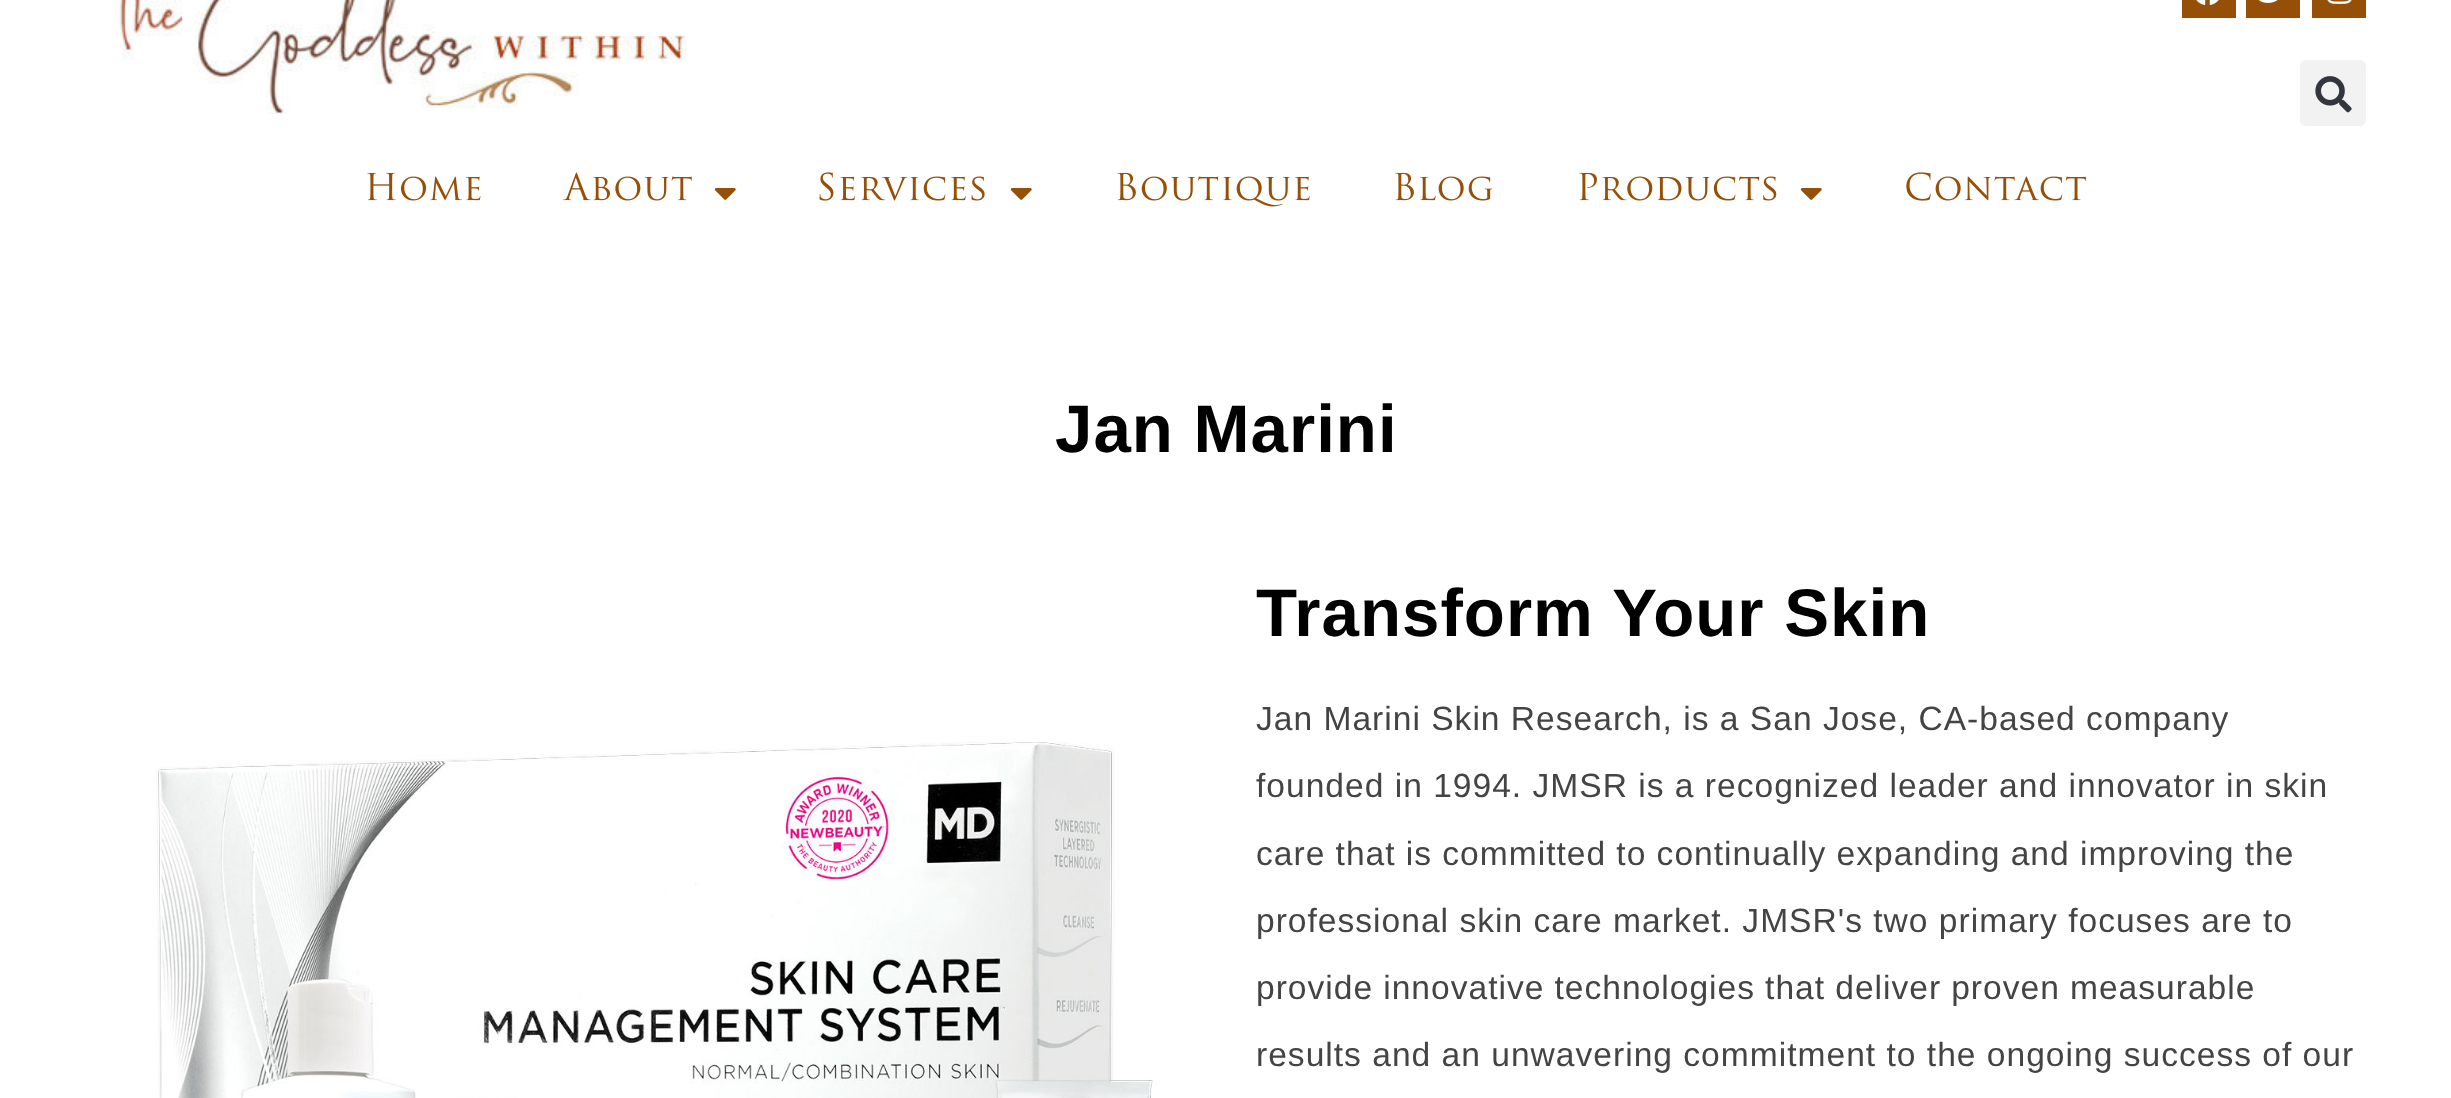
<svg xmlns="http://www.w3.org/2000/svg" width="2451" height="1098">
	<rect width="100%" height="100%" fill="#FFFFFF" />
	<image x="112" y="0" width="574" height="114" href="assets/img1.png" />
	<rect x="2182" y="0" width="54" height="18" fill="#954F07" />
	<image x="2196" y="0" width="23" height="5" href="assets/img2.png" />
	<rect x="2246" y="0" width="54" height="18" fill="#954F07" />
	<image x="2258" y="0" width="20" height="3" href="assets/img3.png" />
	<rect x="2312" y="0" width="54" height="18" fill="#954F07" />
	<image x="2327" y="0" width="25" height="4" href="assets/img4.png" />
	<rect x="2300" y="60" width="66" height="66" rx="6" fill="#F2F2F2" />
	<image x="2315" y="76" width="37" height="37" href="assets/img5.png" />
	<image x="367" y="172" width="114" height="29" href="assets/img6.png" />
	<image x="563" y="172" width="129" height="29" href="assets/img7.png" />
	<image x="714" y="188" width="22" height="12" href="assets/img8.png" />
	<image x="819" y="172" width="166" height="29" href="assets/img9.png" />
	<image x="1010" y="188" width="22" height="12" href="assets/img8.png" />
	<image x="1117" y="172" width="193" height="35" href="assets/img10.png" />
	<image x="1395" y="172" width="98" height="29" href="assets/img11.png" />
	<image x="1579" y="172" width="198" height="29" href="assets/img12.png" />
	<image x="1800" y="188" width="22" height="12" href="assets/img8.png" />
	<image x="1906" y="172" width="180" height="29" href="assets/img13.png" />
	<text x="1055" y="452" font-family="Liberation Sans" font-size="67.25" font-weight="700" letter-spacing="1" fill="#000000">Jan Marini</text>
	<image x="156" y="742" width="998" height="356" href="assets/img14.png" />
	<text x="1256" y="636" font-family="Liberation Sans" font-size="67.25" font-weight="700" letter-spacing="1" fill="#000000">Transform Your Skin</text>
	<g font-family="Liberation Sans" font-size="33.6" letter-spacing="1" fill="#444444">
		<text x="1256" y="730">Jan Marini Skin Research, is a San Jose, CA-based company</text>
		<text x="1256" y="797">founded in 1994. JMSR is a recognized leader and innovator in skin</text>
		<text x="1256" y="865" word-spacing="-0.1">care that is committed to continually expanding and improving the</text>
		<text x="1256" y="932">professional skin care market. JMSR's two primary focuses are to</text>
		<text x="1256" y="999" word-spacing="-0.25">provide innovative technologies that deliver proven measurable</text>
		<text x="1256" y="1066">results and an unwavering commitment to the ongoing success of our</text>
	</g>
</svg>
